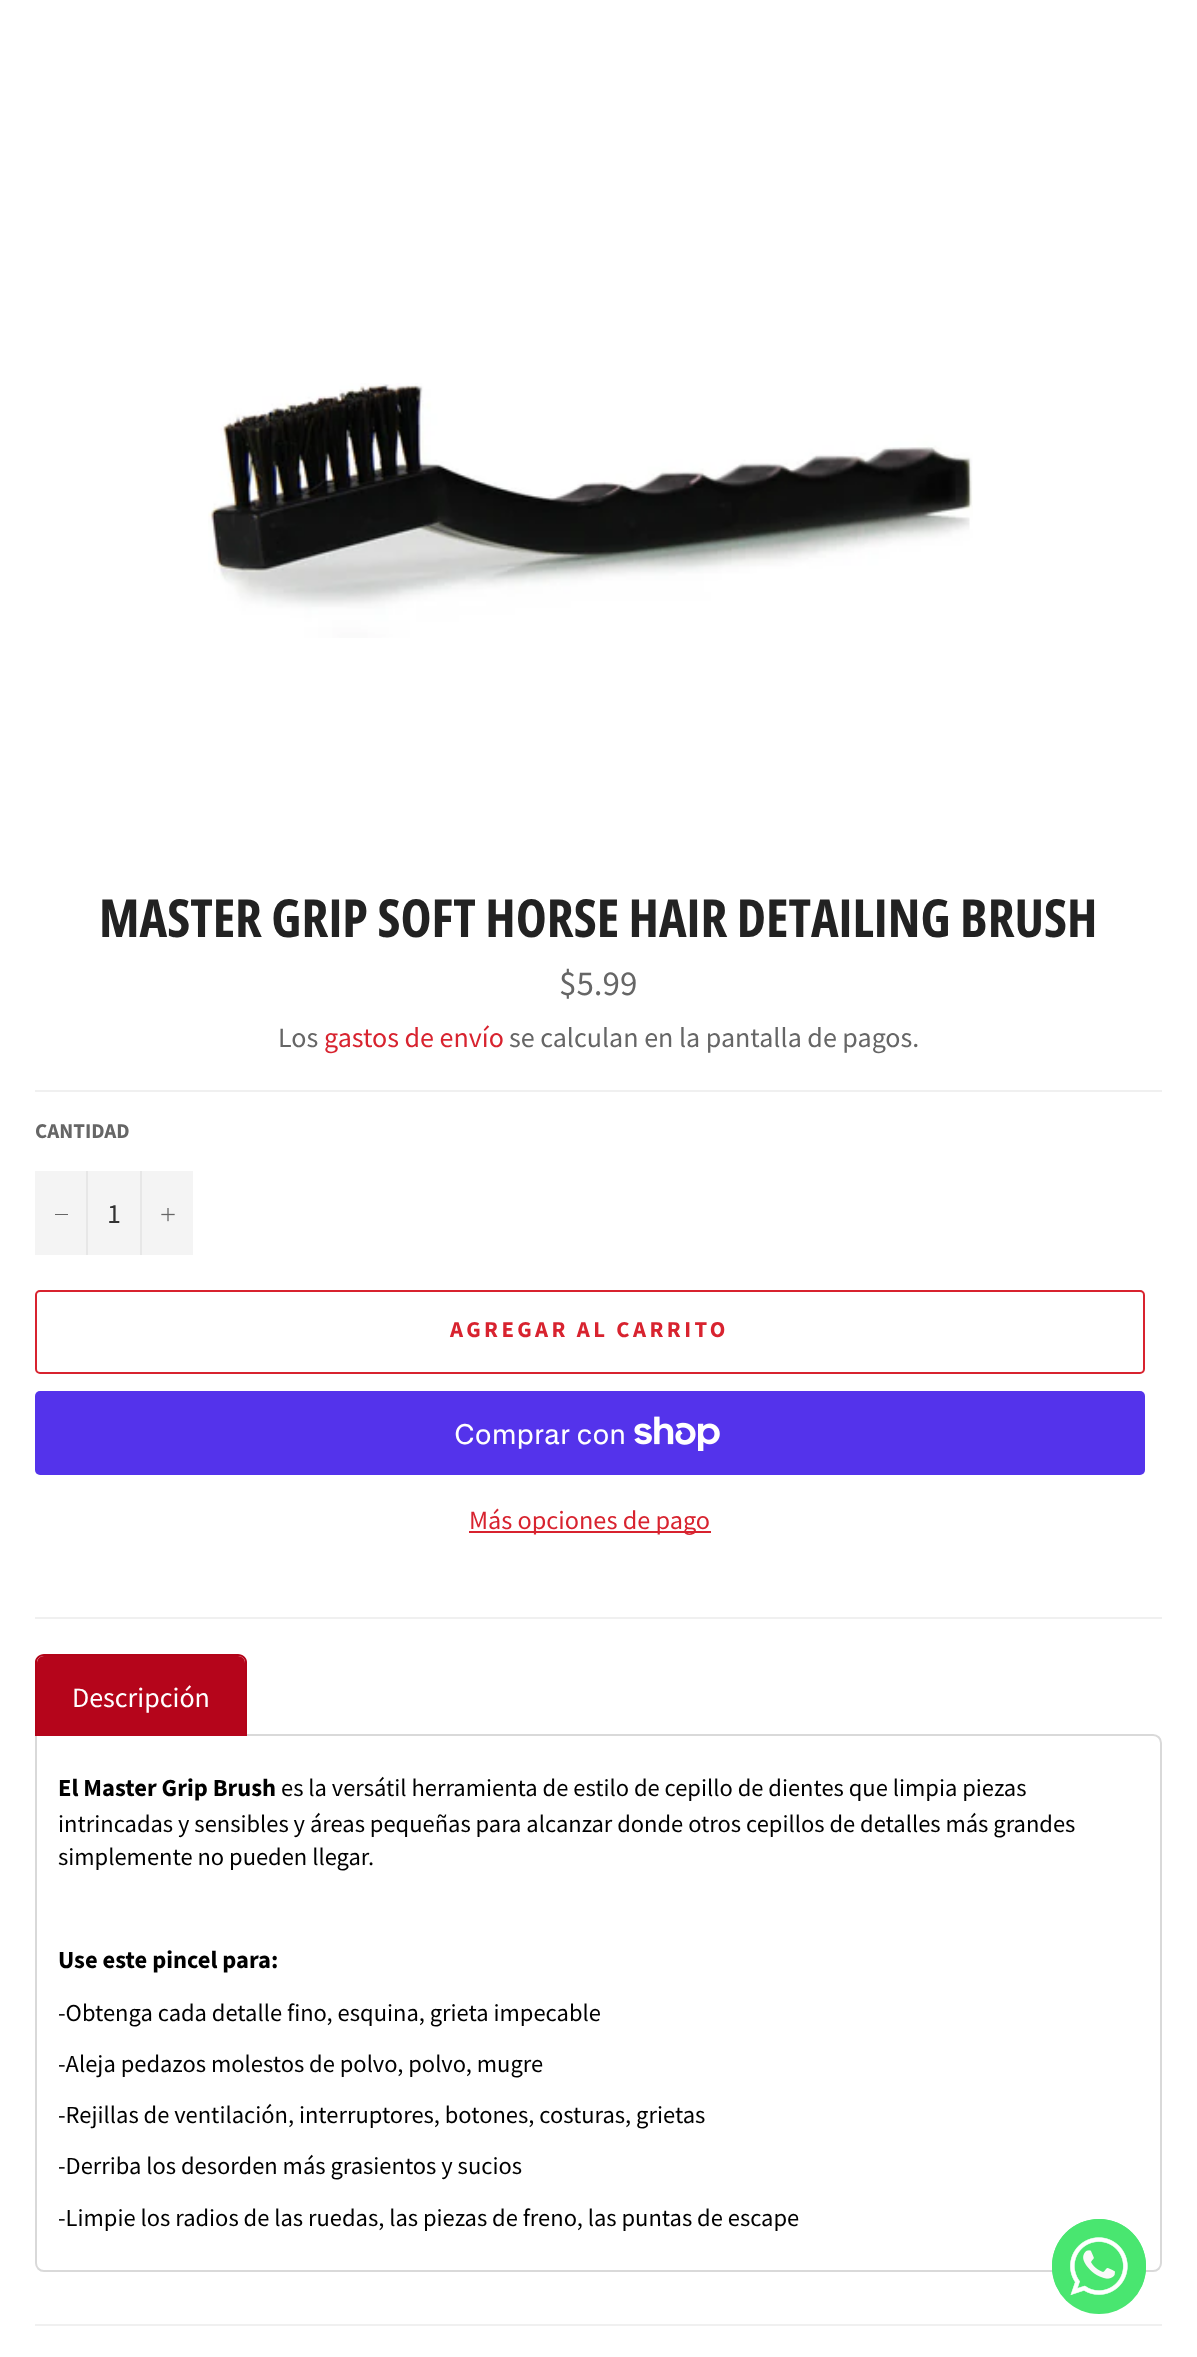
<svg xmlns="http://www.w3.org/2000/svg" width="1197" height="2357">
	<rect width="100%" height="100%" fill="#FFFFFF" />
	<image x="208" y="383" width="765" height="255" href="assets/img1.png" />
	<text x="99" y="937" font-family="Open Sans Condensed" font-size="52.5" font-weight="700" fill="#222222">MASTER GRIP SOFT HORSE HAIR DETAILING BRUSH</text>
	<text x="559" y="995" font-family="Source Sans Pro" font-size="35" fill="#666666">$5.99</text>
	<text x="278" y="1047" font-family="Source Sans Pro" font-size="28" fill="#666666">Los</text>
	<text x="324" y="1047" font-family="Source Sans Pro" font-size="28" fill="#D8232F">gastos de envío</text>
	<text x="509" y="1047" font-family="Source Sans Pro" font-size="28" fill="#666666">se calculan en la pantalla de pagos.</text>
	<rect x="35" y="1090" width="1127" height="2" fill="#F0F0F0" />
	<text x="35" y="1138" font-family="Source Sans Pro" font-size="21" font-weight="700" fill="#666666">CANTIDAD</text>
	<rect x="35" y="1171" width="158" height="84" fill="#F4F4F4" />
	<rect x="86" y="1171" width="2" height="84" fill="#E7E7E7" />
	<rect x="55" y="1214" width="13" height="1" fill="#666666" />
	<text x="107" y="1223" font-family="Source Sans Pro" font-size="28" fill="#333333">1</text>
	<rect x="140" y="1171" width="2" height="84" fill="#E7E7E7" />
	<image x="161" y="1208" width="14" height="14" href="assets/img2.png" />
	<rect x="36" y="1291" width="1108" height="82" rx="4" fill="none" stroke="#D8232F" stroke-width="2" />
	<text x="450" y="1337" font-family="Source Sans Pro" font-size="22.75" font-weight="700" letter-spacing="3.4" fill="#D8232F">AGREGAR AL CARRITO</text>
	<rect x="35" y="1391" width="1110" height="84" rx="5" fill="#5433EB" />
	<text x="454" y="1444" font-family="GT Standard" font-size="28" fill="#FFFFFF">Comprar con</text>
	<image x="634" y="1416" width="86" height="35" href="assets/img3.png" />
	<rect x="469" y="1531" width="242" height="2" fill="#D8232F" />
	<text x="469" y="1529" font-family="Source Sans Pro" font-size="26.25" fill="#D8232F">Más opciones de pago</text>
	<rect x="35" y="1617" width="1127" height="2" fill="#F0F0F0" />
	<path d="M36 1735H1153C1157.5 1735 1161 1738.5 1161 1743V2263C1161 2267.5 1157.5 2271 1153 2271H44C39.5 2271 36 2267.5 36 2263Z" fill="none" stroke="#D9D9D9" stroke-width="2" />
	<path d="M44 1656H238C242 1656 245 1659 245 1663V1736H37V1663C37 1659 40 1656 44 1656Z" fill="#B5051B" />
	<path d="M44 1654H238C243 1654 247 1658 247 1662V1736H35V1662C35 1658 39 1654 44 1654ZM44 1656H238C242 1656 245 1659 245 1662V1736H37V1662C37 1659 40 1656 44 1656Z" fill="#B30318" fill-rule="evenodd" />
	<text x="72" y="1707" font-family="Source Sans Pro" font-size="28" fill="#FFFFFF">Descripción</text>
	<text x="58" y="1796" font-family="Source Sans Pro" font-size="24.5" font-weight="700" fill="#000000">El Master Grip Brush</text>
	<g font-family="Source Sans Pro" font-size="24.5" fill="#000000">
		<text x="281" y="1796">es la versátil herramienta de estilo de cepillo de dientes que limpia piezas</text>
		<text x="58" y="1832">intrincadas y sensibles y áreas pequeñas para alcanzar donde otros cepillos de detalles más grandes</text>
		<text x="58" y="1865">simplemente no pueden llegar.</text>
	</g>
	<text x="58" y="1968" font-family="Source Sans Pro" font-size="24.5" font-weight="700" fill="#000000">Use este pincel para:</text>
	<g font-family="Source Sans Pro" font-size="24.5" fill="#000000">
		<text x="58" y="2021">-Obtenga cada detalle fino, esquina, grieta impecable</text>
		<text x="58" y="2072">-Aleja pedazos molestos de polvo, polvo, mugre</text>
		<text x="58" y="2123">-Rejillas de ventilación, interruptores, botones, costuras, grietas</text>
		<text x="58" y="2174">-Derriba los desorden más grasientos y sucios</text>
		<text x="58" y="2226">-Limpie los radios de las ruedas, las piezas de freno, las puntas de escape</text>
	</g>
	<rect x="35" y="2324" width="1127" height="2" fill="#F0F0F0" />
	<rect x="1052" y="2219" width="94" height="95" rx="47" fill="#49E670" />
	<image x="1052" y="2219" width="94" height="77" href="assets/img4.png" />
</svg>
